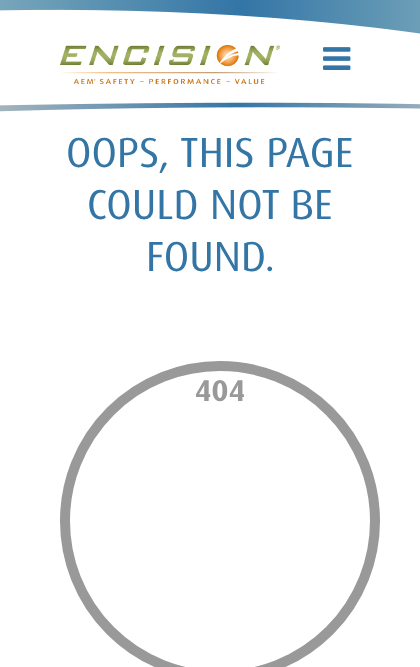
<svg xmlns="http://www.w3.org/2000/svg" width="420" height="667">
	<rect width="100%" height="100%" fill="#FFFFFF" />
	<image x="0" y="0" width="420" height="112" href="assets/img1.png" />
	<image x="60" y="45" width="220" height="39" href="assets/img2.png" />
	<image x="323" y="47" width="28" height="23" href="assets/img3.png" />
	<g font-family="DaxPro" font-size="42" fill="#3375A5">
		<text x="66" y="167">OOPS, THIS PAGE</text>
		<text x="87" y="219">COULD NOT BE</text>
		<text x="146" y="271">FOUND.</text>
	</g>
	<circle cx="220" cy="521" r="155" fill="none" stroke="#999999" stroke-width="10" />
	<text x="195" y="401" font-family="DaxPro" font-size="30" font-weight="700" fill="#999999">404</text>
</svg>
